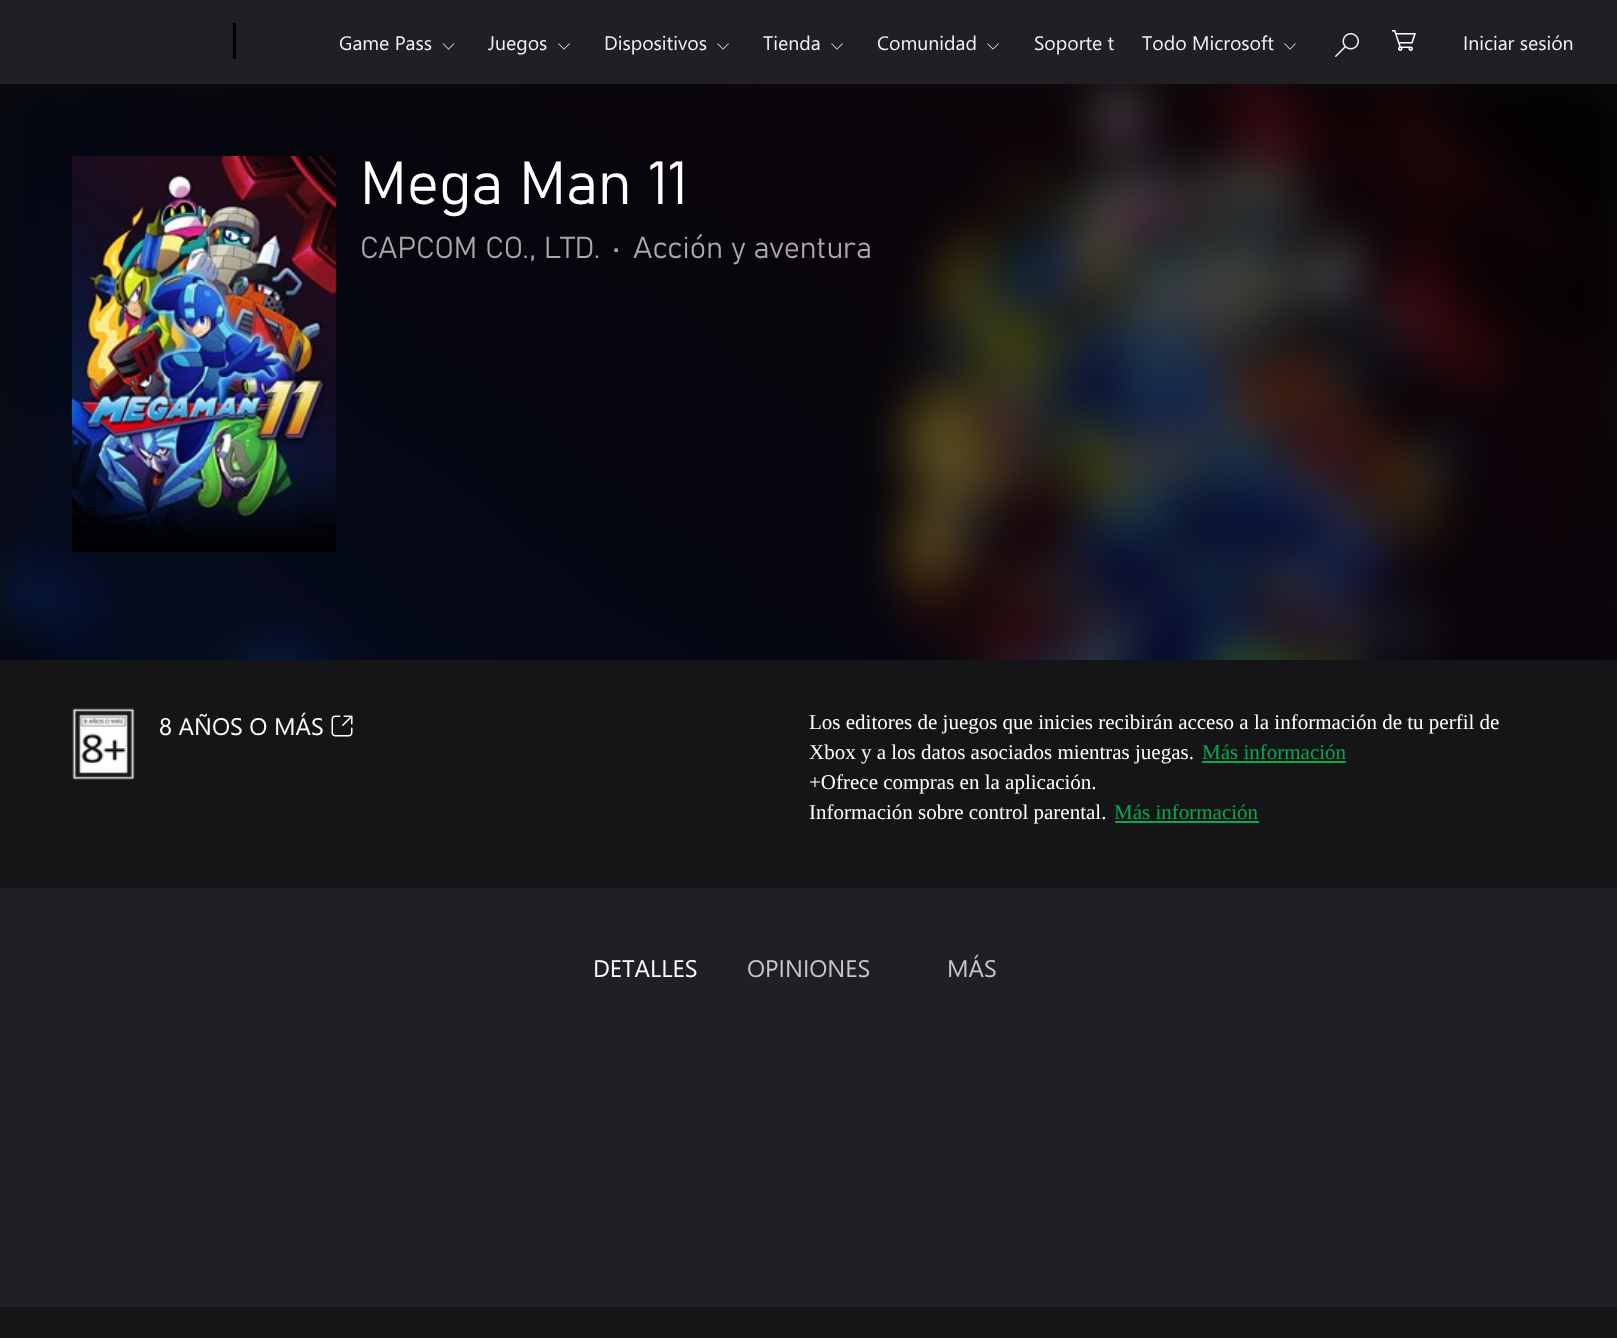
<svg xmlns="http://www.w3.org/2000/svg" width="1617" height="1338">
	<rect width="100%" height="100%" fill="#201F24" />
	<rect x="0" y="84" width="1617" height="576" fill="#0C0B0D" />
	<rect x="233" y="23" width="3" height="36" fill="#000000" />
	<text x="339" y="50" font-family="Segoe UI" font-size="19.5" fill="#F2F2F2">Game Pass</text>
	<image x="442" y="43" width="13" height="7" href="assets/img1.png" />
	<text x="488" y="50" font-family="Segoe UI" font-size="19.5" fill="#F2F2F2">Juegos</text>
	<image x="558" y="43" width="12" height="7" href="assets/img2.png" />
	<text x="604" y="50" font-family="Segoe UI" font-size="19.5" fill="#F2F2F2">Dispositivos</text>
	<image x="717" y="43" width="12" height="7" href="assets/img2.png" />
	<text x="763" y="50" font-family="Segoe UI" font-size="19.5" fill="#F2F2F2">Tienda</text>
	<image x="831" y="43" width="12" height="7" href="assets/img2.png" />
	<text x="877" y="50" font-family="Segoe UI" font-size="19.5" fill="#F2F2F2">Comunidad</text>
	<image x="987" y="43" width="12" height="7" href="assets/img2.png" />
	<g font-family="Segoe UI" font-size="19.5" fill="#F2F2F2">
		<text x="1034" y="50">Soporte t</text>
		<text x="1142" y="50">Todo Microsoft</text>
	</g>
	<image x="1284" y="43" width="12" height="7" href="assets/img2.png" />
	<image x="1335" y="33" width="24" height="24" href="assets/img3.png" />
	<image x="1392" y="30" width="24" height="21" href="assets/img4.png" />
	<text x="1463" y="50" font-family="Segoe UI" font-size="19.5" fill="#F2F2F2">Iniciar sesión</text>
	<image x="0" y="84" width="1617" height="576" href="assets/img5.png" />
	<image x="72" y="156" width="264" height="396" href="assets/img6.png" />
	<text x="360" y="204" font-family="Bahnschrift" font-size="60" font-weight="300" fill="#FFFFFF">Mega Man 11</text>
	<g font-family="Bahnschrift" font-size="30" font-weight="300" fill="#A8A8AB">
		<text x="360" y="258">CAPCOM CO., LTD.</text>
		<text x="612" y="258">•</text>
		<text x="633" y="258">Acción y aventura</text>
	</g>
	<rect x="0" y="660" width="1617" height="228" fill="#151517" />
	<image x="72" y="708" width="63" height="72" href="assets/img7.png" />
	<text x="159" y="735" font-family="Segoe UI" font-size="24" fill="#FFFFFF">8 AÑOS O MÁS</text>
	<image x="331" y="715" width="22" height="22" href="assets/img8.png" />
	<g font-family="Liberation Serif" font-size="21" fill="#FFFFFF">
		<text x="809" y="729">Los editores de juegos que inicies recibirán acceso a la información de tu perfil de</text>
		<text x="809" y="759">Xbox y a los datos asociados mientras juegas.</text>
	</g>
	<text x="1202" y="759" font-family="Liberation Serif" font-size="21" fill="#04AB4F">Más información</text>
	<rect x="1202" y="761" width="144" height="2" fill="#04AB4F" />
	<g font-family="Liberation Serif" font-size="21" fill="#FFFFFF">
		<text x="809" y="789">+Ofrece compras en la aplicación.</text>
		<text x="809" y="819">Información sobre control parental.</text>
	</g>
	<text x="1114" y="819" font-family="Liberation Serif" font-size="21" fill="#04AB4F">Más información</text>
	<rect x="1115" y="821" width="144" height="2" fill="#04AB4F" />
	<text x="593" y="977" font-family="Segoe UI" font-size="24" fill="#FFFFFF">DETALLES</text>
	<g font-family="Segoe UI" font-size="24" fill="#C7C7C8">
		<text x="747" y="977">OPINIONES</text>
		<text x="947" y="977">MÁS</text>
	</g>
	<rect x="0" y="1307" width="1617" height="31" fill="#151517" />
</svg>
